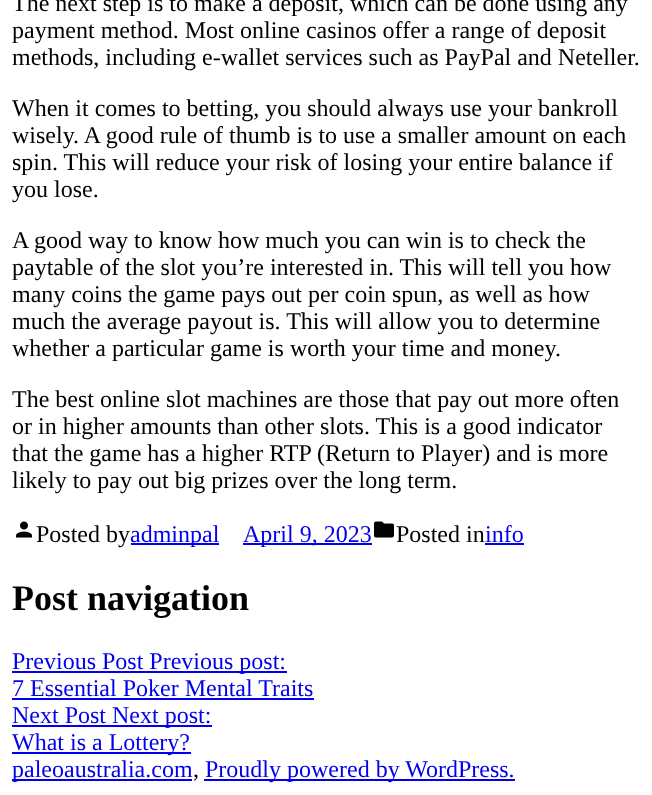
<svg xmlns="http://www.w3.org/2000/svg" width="652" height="795">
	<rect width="100%" height="100%" fill="#FFFFFF" />
	<g font-family="Liberation Serif" font-size="24" fill="#000000">
		<text x="12" y="11">The next step is to make a deposit, which can be done using any</text>
		<text x="12" y="38">payment method. Most online casinos offer a range of deposit</text>
		<text x="12" y="65">methods, including e-wallet services such as PayPal and Neteller.</text>
		<text x="12" y="116">When it comes to betting, you should always use your bankroll</text>
		<text x="12" y="143">wisely. A good rule of thumb is to use a smaller amount on each</text>
		<text x="12" y="170">spin. This will reduce your risk of losing your entire balance if</text>
		<text x="12" y="197">you lose.</text>
		<text x="12" y="248">A good way to know how much you can win is to check the</text>
		<text x="12" y="275">paytable of the slot you’re interested in. This will tell you how</text>
		<text x="12" y="302">many coins the game pays out per coin spun, as well as how</text>
		<text x="12" y="329">much the average payout is. This will allow you to determine</text>
		<text x="12" y="356">whether a particular game is worth your time and money.</text>
		<text x="12" y="407">The best online slot machines are those that pay out more often</text>
		<text x="12" y="434">or in higher amounts than other slots. This is a good indicator</text>
		<text x="12" y="461">that the game has a higher RTP (Return to Player) and is more</text>
		<text x="12" y="488">likely to pay out big prizes over the long term.</text>
	</g>
	<image x="16" y="521" width="16" height="17" href="assets/img1.png" />
	<text x="36" y="542" font-family="Liberation Serif" font-size="24" fill="#000000">Posted by</text>
	<rect x="131" y="543" width="88" height="2" fill="#0000EE" />
	<text x="130" y="542" font-family="Liberation Serif" font-size="24" fill="#0000EE">adminpal</text>
	<rect x="243" y="543" width="129" height="2" fill="#0000EE" />
	<text x="243" y="542" font-family="Liberation Serif" font-size="24" fill="#0000EE">April 9, 2023</text>
	<image x="374" y="521" width="20" height="17" href="assets/img2.png" />
	<text x="396" y="542" font-family="Liberation Serif" font-size="24" fill="#000000">Posted in</text>
	<rect x="485" y="543" width="39" height="2" fill="#0000EE" />
	<text x="485" y="542" font-family="Liberation Serif" font-size="24" fill="#0000EE">info</text>
	<text x="12" y="610" font-family="Liberation Serif" font-size="36" font-weight="700" fill="#000000">Post navigation</text>
	<rect x="12" y="671" width="275" height="2" fill="#0000EE" />
	<g font-family="Liberation Serif" font-size="24" fill="#0000EE">
		<text x="12" y="669">Previous Post Previous post:</text>
		<text x="12" y="696">7 Essential Poker Mental Traits</text>
	</g>
	<rect x="12" y="698" width="302" height="2" fill="#0000EE" />
	<rect x="12" y="725" width="200" height="2" fill="#0000EE" />
	<text x="12" y="723" font-family="Liberation Serif" font-size="24" fill="#0000EE">Next Post Next post:</text>
	<rect x="12" y="752" width="179" height="2" fill="#0000EE" />
	<text x="12" y="750" font-family="Liberation Serif" font-size="24" fill="#0000EE">What is a Lottery?</text>
	<rect x="12" y="779" width="180" height="2" fill="#0000EE" />
	<text x="12" y="777" font-family="Liberation Serif" font-size="24" fill="#0000EE">paleoaustralia.com</text>
	<text x="193" y="777" font-family="Liberation Serif" font-size="24" fill="#000000">,</text>
	<rect x="204" y="779" width="311" height="2" fill="#0000EE" />
	<text x="205" y="777" font-family="Liberation Serif" font-size="24" fill="#0000EE">Proudly powered by WordPress.</text>
</svg>
